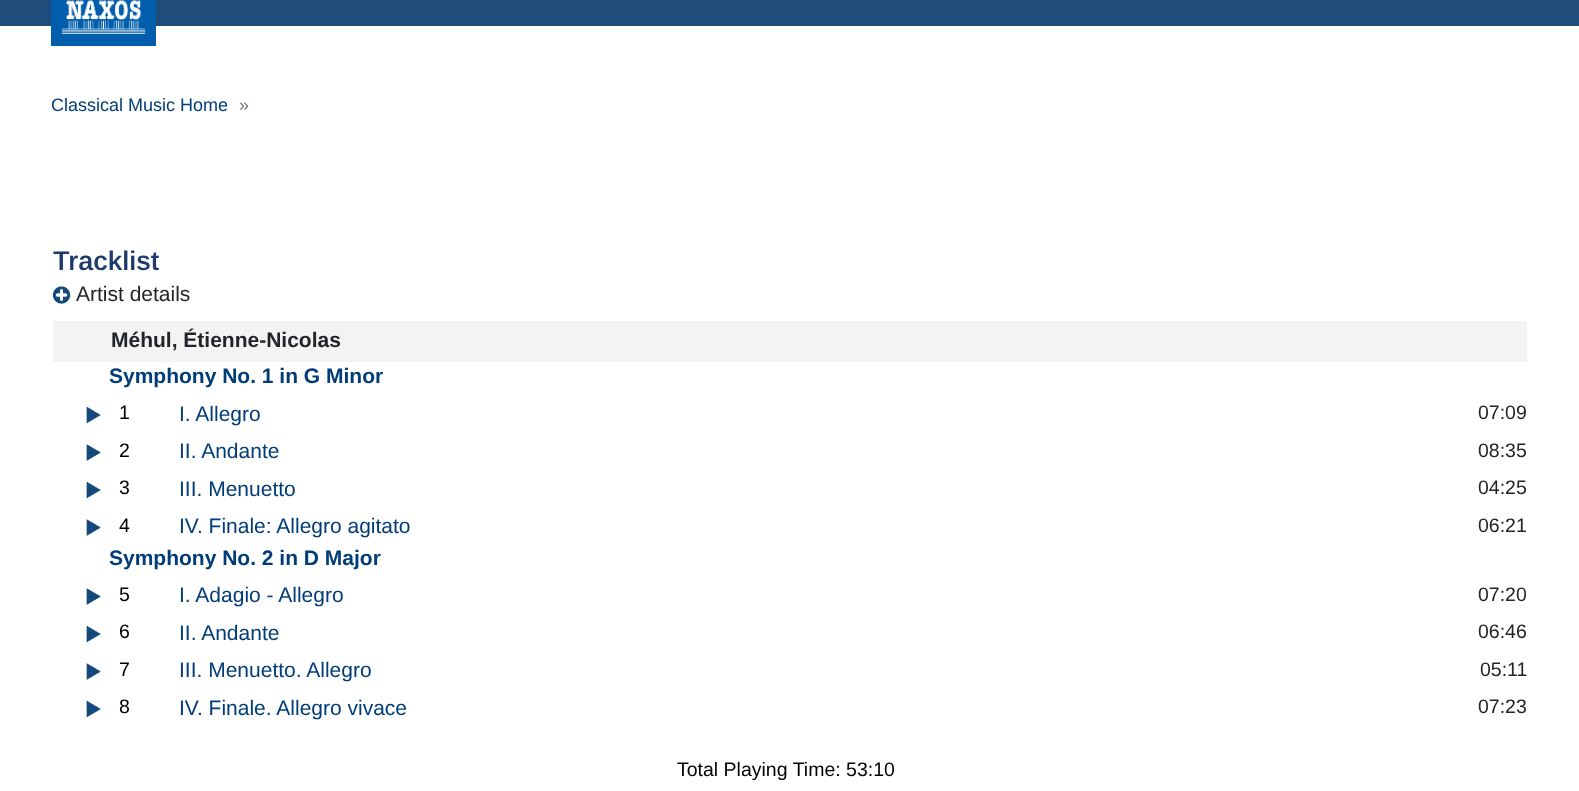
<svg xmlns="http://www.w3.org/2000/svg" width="1579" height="791">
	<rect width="100%" height="100%" fill="#FFFFFF" />
	<rect x="0" y="0" width="1579" height="26" fill="#204C7C" />
	<image x="51" y="0" width="105" height="46" href="assets/img1.png" />
	<text x="51" y="111" font-family="Arimo" font-size="18" fill="#003D78">Classical Music Home</text>
	<text x="239" y="111" font-family="Arimo" font-size="18" fill="#6C757D">»</text>
	<text x="53" y="270" font-family="Arimo" font-size="27" font-weight="600" fill="#1E3A6C">Tracklist</text>
	<image x="52" y="286" width="19" height="18" href="assets/img2.png" />
	<text x="76" y="301" font-family="Arimo" font-size="21" fill="#212529">Artist details</text>
	<rect x="53" y="321" width="1474" height="41" fill="#F3F3F3" />
	<text x="111" y="347" font-family="Arimo" font-size="21" font-weight="700" fill="#212529">Méhul, Étienne-Nicolas</text>
	<text x="109" y="383" font-family="Arimo" font-size="21" font-weight="700" fill="#003D78">Symphony No. 1 in G Minor</text>
	<image x="86" y="406" width="15" height="18" href="assets/img3.png" />
	<text x="119" y="419" font-family="Arimo" font-size="19.5" fill="#000000">1</text>
	<text x="179" y="421" font-family="Arimo" font-size="21" fill="#003D78">I. Allegro</text>
	<text x="1478" y="419" font-family="Arimo" font-size="19.5" fill="#212529">07:09</text>
	<image x="86" y="444" width="15" height="17" href="assets/img4.png" />
	<text x="119" y="457" font-family="Arimo" font-size="19.5" fill="#000000">2</text>
	<text x="179" y="458" font-family="Arimo" font-size="21" fill="#003D78">II. Andante</text>
	<text x="1478" y="457" font-family="Arimo" font-size="19.5" fill="#212529">08:35</text>
	<image x="86" y="481" width="15" height="18" href="assets/img3.png" />
	<text x="119" y="494" font-family="Arimo" font-size="19.5" fill="#000000">3</text>
	<text x="179" y="496" font-family="Arimo" font-size="21" fill="#003D78">III. Menuetto</text>
	<text x="1478" y="494" font-family="Arimo" font-size="19.5" fill="#212529">04:25</text>
	<image x="86" y="519" width="15" height="17" href="assets/img4.png" />
	<text x="119" y="532" font-family="Arimo" font-size="19.5" fill="#000000">4</text>
	<text x="179" y="533" font-family="Arimo" font-size="21" fill="#003D78">IV. Finale: Allegro agitato</text>
	<text x="1478" y="532" font-family="Arimo" font-size="19.5" fill="#212529">06:21</text>
	<text x="109" y="565" font-family="Arimo" font-size="21" font-weight="700" fill="#003D78">Symphony No. 2 in D Major</text>
	<image x="86" y="588" width="15" height="17" href="assets/img4.png" />
	<text x="119" y="601" font-family="Arimo" font-size="19.5" fill="#000000">5</text>
	<text x="179" y="602" font-family="Arimo" font-size="21" fill="#003D78">I. Adagio - Allegro</text>
	<text x="1478" y="601" font-family="Arimo" font-size="19.5" fill="#212529">07:20</text>
	<image x="86" y="625" width="15" height="18" href="assets/img3.png" />
	<text x="119" y="638" font-family="Arimo" font-size="19.5" fill="#000000">6</text>
	<text x="179" y="640" font-family="Arimo" font-size="21" fill="#003D78">II. Andante</text>
	<text x="1478" y="638" font-family="Arimo" font-size="19.5" fill="#212529">06:46</text>
	<image x="86" y="663" width="15" height="17" href="assets/img4.png" />
	<text x="119" y="676" font-family="Arimo" font-size="19.5" fill="#000000">7</text>
	<text x="179" y="677" font-family="Arimo" font-size="21" fill="#003D78">III. Menuetto. Allegro</text>
	<text x="1480" y="676" font-family="Arimo" font-size="19.5" fill="#212529">05:11</text>
	<image x="86" y="700" width="15" height="18" href="assets/img3.png" />
	<text x="119" y="713" font-family="Arimo" font-size="19.5" fill="#000000">8</text>
	<text x="179" y="715" font-family="Arimo" font-size="21" fill="#003D78">IV. Finale. Allegro vivace</text>
	<text x="1478" y="713" font-family="Arimo" font-size="19.5" fill="#212529">07:23</text>
	<text x="677" y="776" font-family="Arimo" font-size="19.5" fill="#000000">Total Playing Time: 53:10</text>
</svg>
